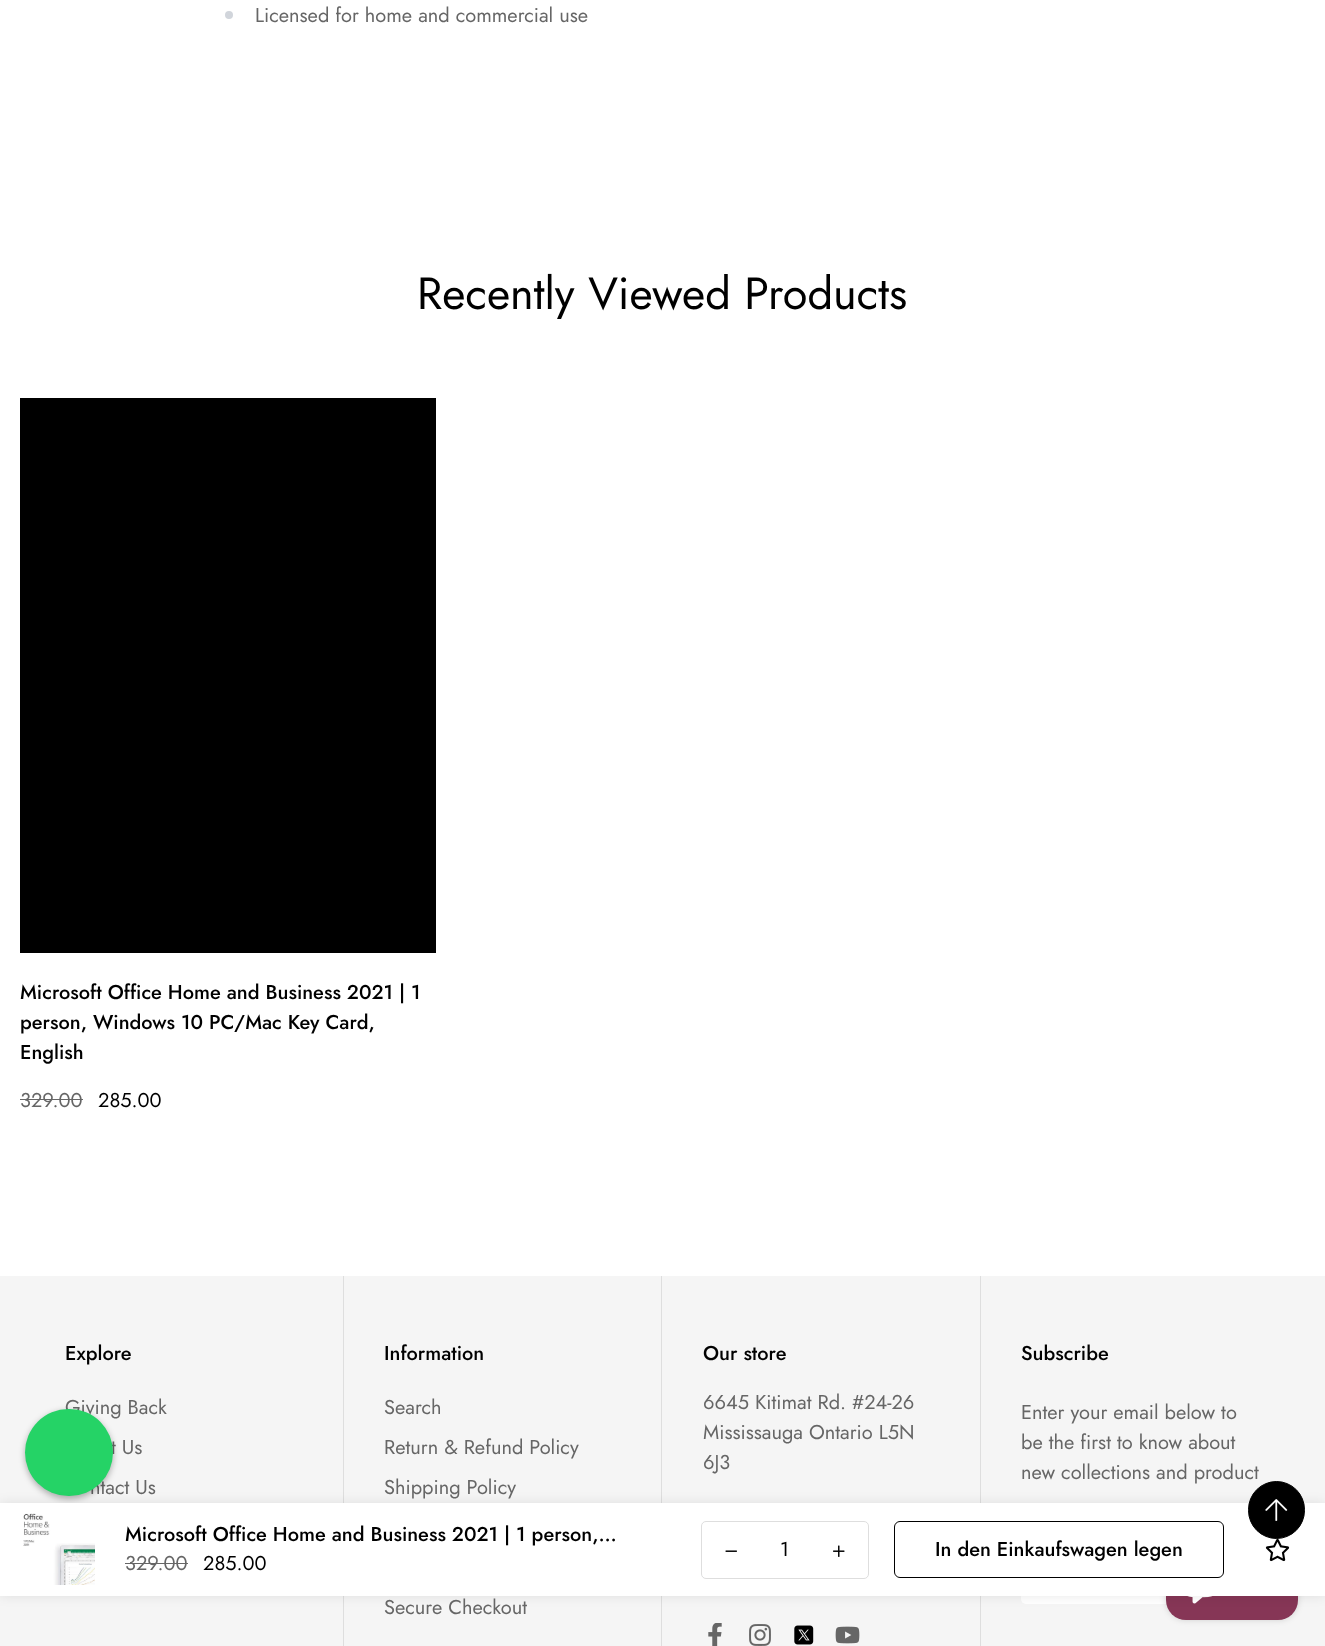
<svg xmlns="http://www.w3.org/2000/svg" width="1325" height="1646">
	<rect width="100%" height="100%" fill="#FFFFFF" />
	<circle cx="229" cy="15" r="4" fill="#D1D5DB" />
	<text x="255" y="22" font-family="Jost" font-size="20" fill="#666666">Licensed for home and commercial use</text>
	<text x="417" y="309" font-family="Jost" font-size="45" fill="#000000">Recently Viewed Products</text>
	<rect x="20" y="398" width="416" height="555" fill="#000000" />
	<g font-family="Jost" font-size="20" font-weight="500" fill="#000000">
		<text x="20" y="999">Microsoft Office Home and Business 2021 | 1</text>
		<text x="20" y="1029">person, Windows 10 PC/Mac Key Card,</text>
		<text x="20" y="1059">English</text>
	</g>
	<text x="20" y="1107" font-family="Jost" font-size="20" fill="#666666">329.00</text>
	<rect x="20" y="1099" width="63" height="1" fill="#666666" />
	<text x="98" y="1107" font-family="Jost" font-size="20" fill="#000000">285.00</text>
	<rect x="0" y="1276" width="1325" height="370" fill="#F5F5F5" />
	<rect x="343" y="1276" width="1" height="370" fill="#DEDEDE" />
	<rect x="661" y="1276" width="1" height="370" fill="#DEDEDE" />
	<rect x="980" y="1276" width="1" height="370" fill="#DEDEDE" />
	<rect x="1021" y="1546" width="239" height="58" rx="5" fill="#FFFFFF" />
	<g font-family="Jost" font-size="20" fill="#666666">
		<text x="65" y="1414">Giving Back</text>
		<text x="111" y="1454">t Us</text>
		<text x="90" y="1494">ntact Us</text>
	</g>
	<rect x="25" y="1411" width="88" height="88" rx="44" fill="#000000" fill-opacity="0.3" filter="blur(3px)" />
	<rect x="25" y="1409" width="88" height="87" rx="43.5" fill="#25D366" />
	<rect x="1166" y="1545" width="132" height="75" rx="20" fill="#000000" fill-opacity="0.15" filter="blur(3px)" />
	<rect x="1166" y="1545" width="132" height="75" rx="20" fill="#863656" />
	<image x="1187" y="1596" width="26" height="8" href="assets/img10.png" />
	<rect x="0" y="1503" width="1325" height="93" fill="#000000" fill-opacity="0.09" filter="blur(6px)" />
	<rect x="0" y="1503" width="1325" height="93" fill="#FFFFFF" />
	<image x="1265" y="1538" width="25" height="24" href="assets/img5.png" />
	<text x="1021" y="1479" font-family="Jost" font-size="20" fill="#666666">new collections and product</text>
	<rect x="1248.5" y="1481.5" width="56" height="57" rx="28" fill="#000000" stroke="#000000" />
	<image x="1265" y="1499" width="23" height="22" href="assets/img1.png" />
	<image x="23" y="1513" width="72" height="72" href="assets/img2.png" />
	<text x="125" y="1541" font-family="Jost" font-size="20" font-weight="500" fill="#000000">Microsoft Office Home and Business 2021 | 1 person,…</text>
	<text x="125" y="1570" font-family="Jost" font-size="20" fill="#666666">329.00</text>
	<rect x="125" y="1563" width="63" height="1" fill="#666666" />
	<text x="203" y="1570" font-family="Jost" font-size="20" fill="#000000">285.00</text>
	<rect x="701.5" y="1521.5" width="167" height="57" rx="4.5" fill="none" stroke="#DEDEDE" />
	<image x="725" y="1550" width="12" height="2" href="assets/img3.png" />
	<text x="780" y="1556" font-family="Jost" font-size="20" fill="#000000">1</text>
	<image x="833" y="1545" width="12" height="12" href="assets/img4.png" />
	<rect x="894.5" y="1521.5" width="329" height="56" rx="5.5" fill="none" stroke="#000000" />
	<g font-family="Jost" font-size="20" font-weight="500" fill="#000000">
		<text x="935" y="1556">In den Einkaufswagen legen</text>
		<text x="65" y="1360">Explore</text>
		<text x="384" y="1360">Information</text>
	</g>
	<g font-family="Jost" font-size="20" fill="#666666">
		<text x="384" y="1414">Search</text>
		<text x="384" y="1454">Return &amp; Refund Policy</text>
		<text x="384" y="1494">Shipping Policy</text>
		<text x="384" y="1614">Secure Checkout</text>
	</g>
	<text x="703" y="1360" font-family="Jost" font-size="20" font-weight="500" fill="#000000">Our store</text>
	<g font-family="Jost" font-size="20" fill="#666666">
		<text x="703" y="1409">6645 Kitimat Rd. #24-26</text>
		<text x="703" y="1439">Mississauga Ontario L5N</text>
		<text x="703" y="1469">6J3</text>
	</g>
	<image x="708" y="1623" width="14" height="23" href="assets/img6.png" />
	<image x="749" y="1624" width="22" height="22" href="assets/img7.png" />
	<image x="794" y="1625" width="20" height="20" href="assets/img8.png" />
	<image x="835" y="1626" width="25" height="18" href="assets/img9.png" />
	<text x="1021" y="1360" font-family="Jost" font-size="20" font-weight="500" fill="#000000">Subscribe</text>
	<g font-family="Jost" font-size="20" fill="#666666">
		<text x="1021" y="1419">Enter your email below to</text>
		<text x="1021" y="1449">be the first to know about</text>
	</g>
</svg>
